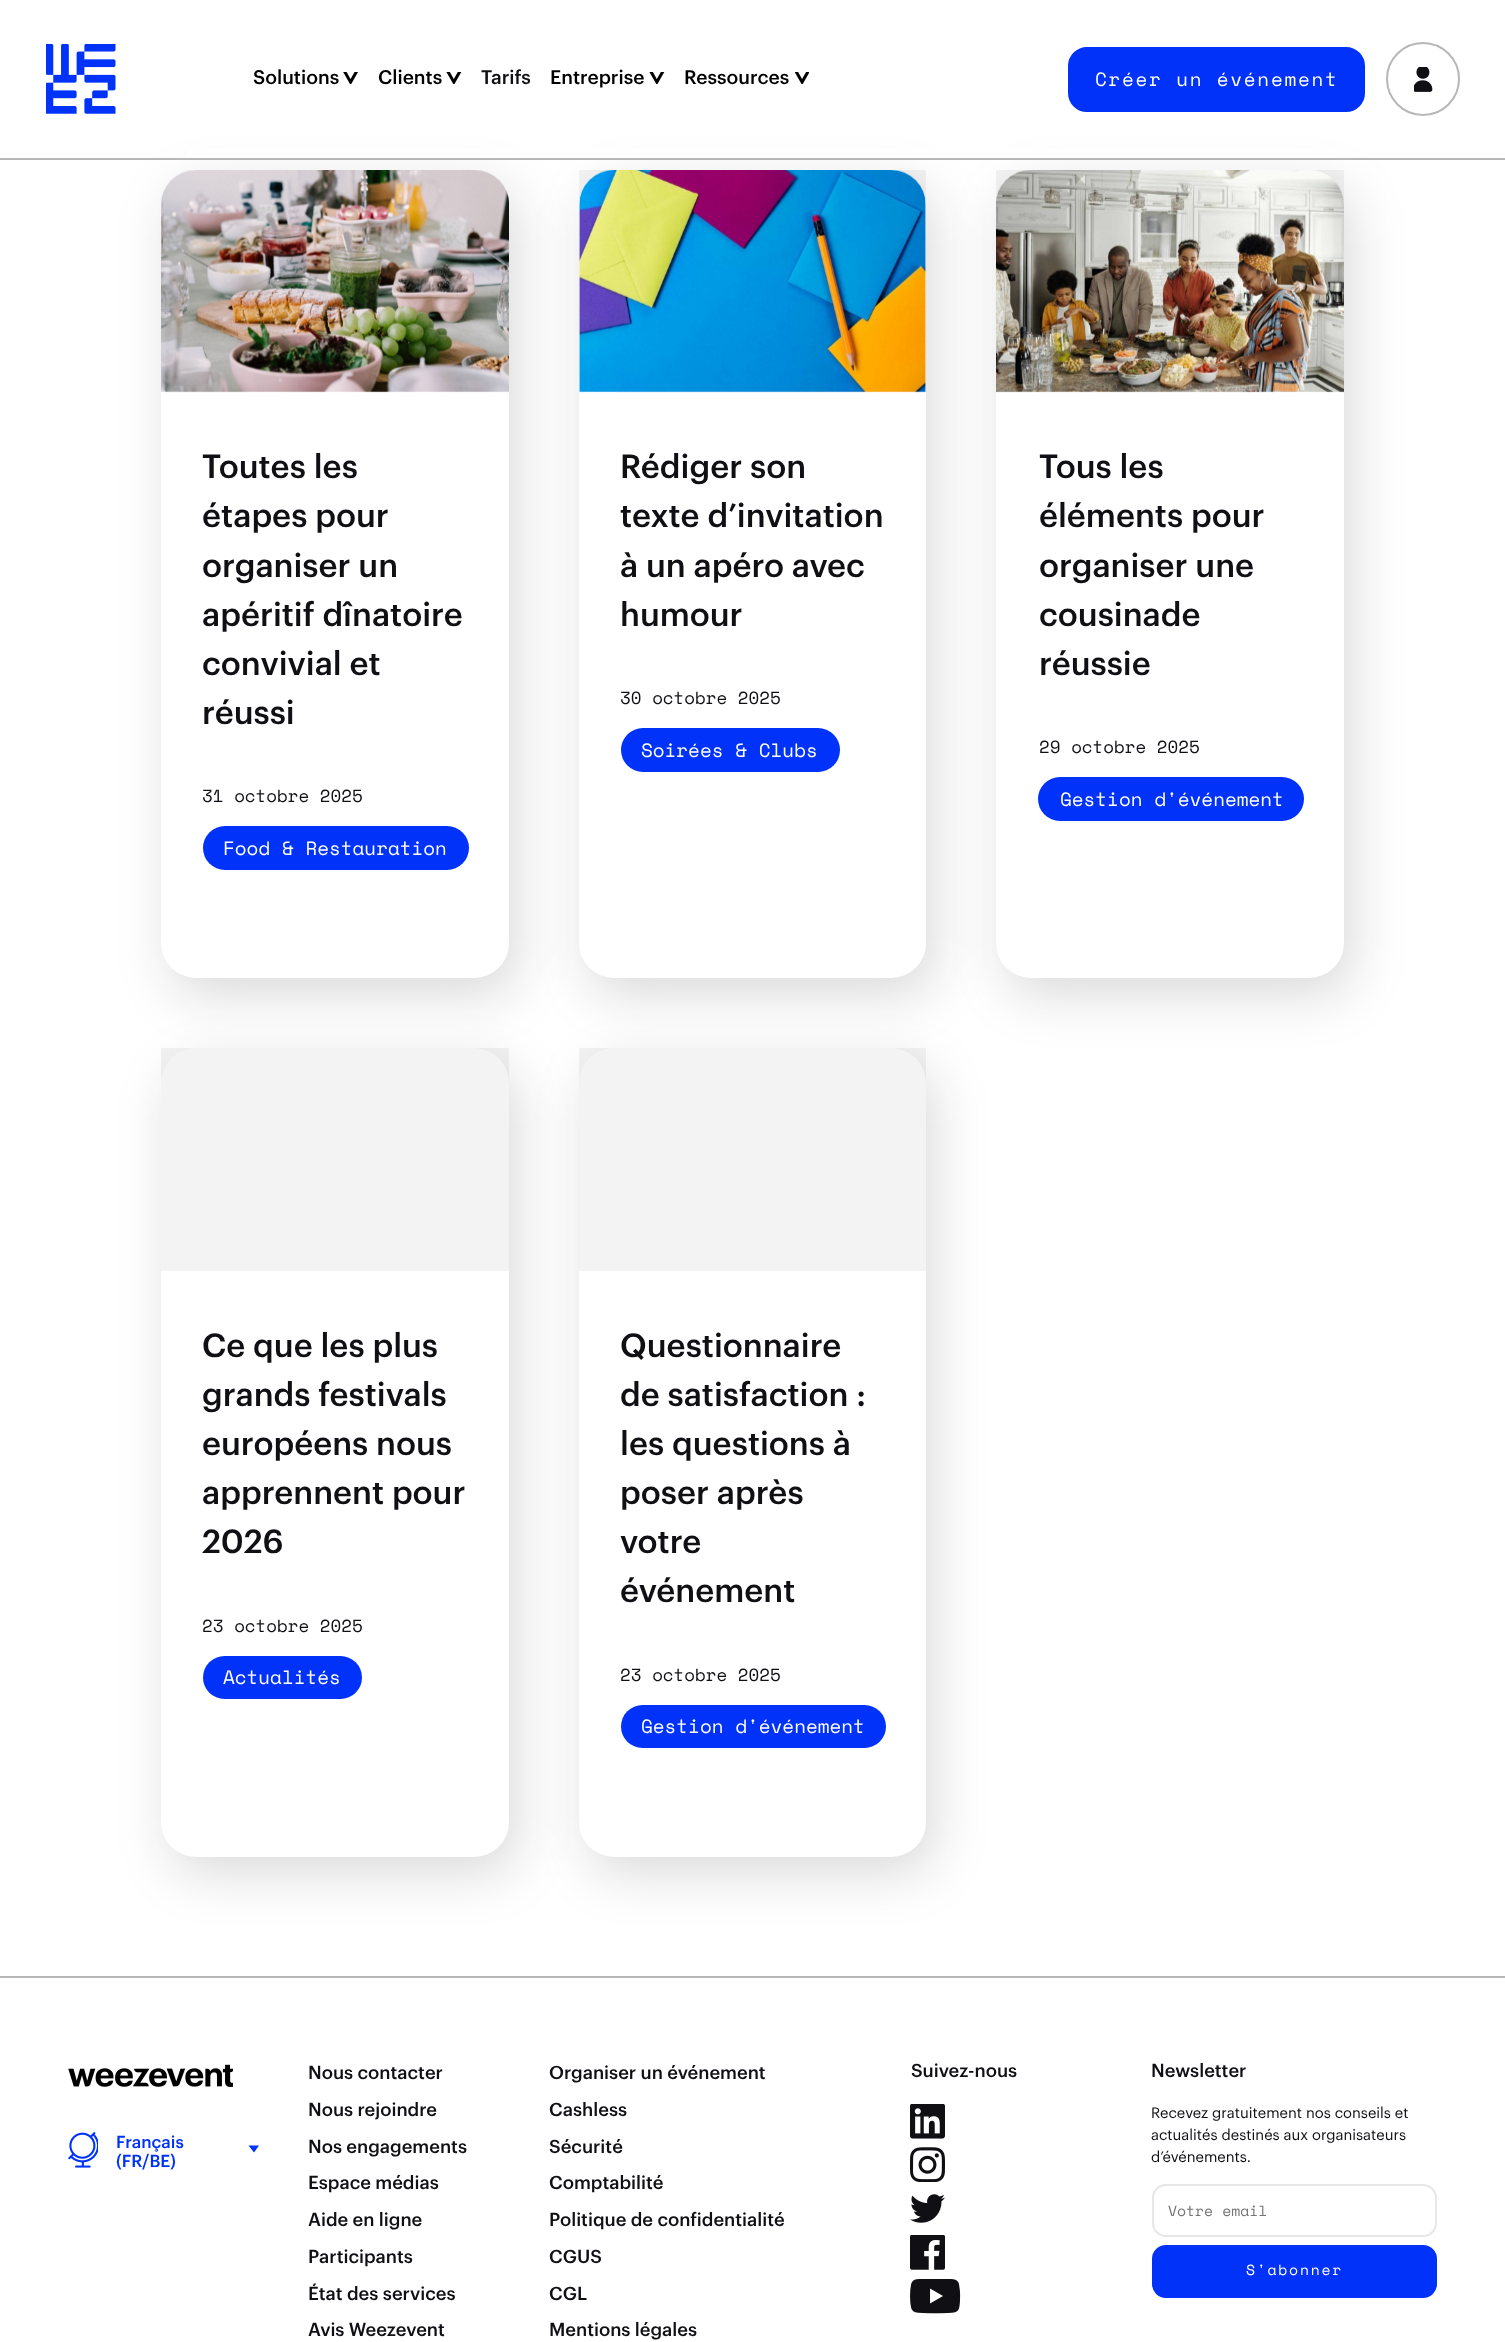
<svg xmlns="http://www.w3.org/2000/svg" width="1505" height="2342">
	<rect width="100%" height="100%" fill="#FFFFFF" />
	<rect x="170" y="187" width="348" height="809" rx="35" fill="#0F0F14" fill-opacity="0.15" filter="blur(26px)" />
	<rect x="588" y="187" width="347" height="809" rx="35" fill="#0F0F14" fill-opacity="0.15" filter="blur(26px)" />
	<rect x="1005" y="187" width="348" height="809" rx="35" fill="#0F0F14" fill-opacity="0.15" filter="blur(26px)" />
	<rect x="0" y="158" width="1505" height="2" fill="#B7B7B8" />
	<rect x="187" y="149" width="1149" height="9" fill="#FFFFFF" />
	<image x="46" y="44" width="70" height="70" href="assets/img1.png" />
	<text x="253" y="84" font-family="Graphik" font-size="19.25" font-weight="500" fill="#000000">Solutions</text>
	<image x="343" y="72" width="15" height="12" href="assets/img2.png" />
	<text x="378" y="84" font-family="Graphik" font-size="19.25" font-weight="500" fill="#000000">Clients</text>
	<image x="446" y="72" width="16" height="12" href="assets/img3.png" />
	<text x="481" y="84" font-family="Graphik" font-size="19.25" font-weight="500" fill="#0F0F14">Tarifs</text>
	<text x="550" y="84" font-family="Graphik" font-size="19.25" font-weight="500" fill="#000000">Entreprise</text>
	<image x="649" y="72" width="16" height="12" href="assets/img3.png" />
	<text x="684" y="84" font-family="Graphik" font-size="19.25" font-weight="500" fill="#000000">Ressources</text>
	<image x="795" y="72" width="14" height="12" href="assets/img4.png" />
	<rect x="1069" y="48" width="295" height="63" rx="18" fill="#0032FA" stroke="#0032FA" stroke-width="2" />
	<text x="1095" y="86" font-family="Space Mono" font-size="19.25" letter-spacing="1.75" fill="#FFFFFF">Créer un événement</text>
	<circle cx="1423" cy="79" r="36" fill="none" stroke="#B7B7B9" stroke-width="2" />
	<image x="1414" y="67" width="19" height="25" href="assets/img5.png" />
	<rect x="161" y="170" width="348" height="808" rx="35" fill="#FFFFFF" />
	<image x="161" y="170" width="348" height="223" href="assets/img6.png" />
	<g font-family="Graphik" font-size="32.75" font-weight="500" fill="#0F0F14">
		<text x="202" y="478">Toutes les</text>
		<text x="202" y="527">étapes pour</text>
		<text x="202" y="577">organiser un</text>
		<text x="202" y="626">apéritif dînatoire</text>
		<text x="202" y="675">convivial et</text>
		<text x="202" y="724">réussi</text>
	</g>
	<text x="202" y="802" font-family="Space Mono" font-size="17.5" fill="#0F0F14">31 octobre 2025</text>
	<rect x="203" y="826" width="266" height="44" rx="22" fill="#0032FA" />
	<text x="223" y="855" font-family="Space Mono" font-size="19.25" fill="#FFFFFF">Food &amp; Restauration</text>
	<rect x="579" y="170" width="347" height="808" rx="35" fill="#FFFFFF" />
	<rect x="579" y="170" width="347" height="222" fill="#0F0F14" fill-opacity="0.05" />
	<image x="579" y="170" width="347" height="223" href="assets/img7.png" />
	<g font-family="Graphik" font-size="32.75" font-weight="500" fill="#0F0F14">
		<text x="620" y="478">Rédiger son</text>
		<text x="620" y="527">texte d’invitation</text>
		<text x="620" y="577">à un apéro avec</text>
		<text x="620" y="626">humour</text>
	</g>
	<text x="620" y="704" font-family="Space Mono" font-size="17.5" fill="#0F0F14">30 octobre 2025</text>
	<rect x="621" y="728" width="219" height="44" rx="22" fill="#0032FA" />
	<text x="641" y="757" font-family="Space Mono" font-size="19.25" fill="#FFFFFF">Soirées &amp; Clubs</text>
	<rect x="996" y="170" width="348" height="808" rx="35" fill="#FFFFFF" />
	<rect x="996" y="170" width="348" height="222" fill="#0F0F14" fill-opacity="0.05" />
	<image x="996" y="170" width="348" height="223" href="assets/img8.png" />
	<g font-family="Graphik" font-size="32.75" font-weight="500" fill="#0F0F14">
		<text x="1039" y="478">Tous les</text>
		<text x="1039" y="527">éléments pour</text>
		<text x="1039" y="577">organiser une</text>
		<text x="1039" y="626">cousinade</text>
		<text x="1039" y="675">réussie</text>
	</g>
	<text x="1039" y="753" font-family="Space Mono" font-size="17.5" fill="#0F0F14">29 octobre 2025</text>
	<rect x="1038" y="777" width="266" height="44" rx="22" fill="#0032FA" />
	<text x="1060" y="806" font-family="Space Mono" font-size="19.25" fill="#FFFFFF">Gestion d'événement</text>
	<rect x="170" y="1066" width="348" height="808" rx="35" fill="#0F0F14" fill-opacity="0.15" filter="blur(26px)" />
	<rect x="161" y="1048" width="348" height="809" rx="35" fill="#FFFFFF" />
	<rect x="161" y="1048" width="348" height="223" fill="#0F0F14" fill-opacity="0.05" />
	<g font-family="Graphik" font-size="32.75" font-weight="500" fill="#0F0F14">
		<text x="202" y="1357">Ce que les plus</text>
		<text x="202" y="1406">grands festivals</text>
		<text x="202" y="1455">européens nous</text>
		<text x="202" y="1504">apprennent pour</text>
		<text x="202" y="1553">2026</text>
	</g>
	<text x="202" y="1632" font-family="Space Mono" font-size="17.5" fill="#0F0F14">23 octobre 2025</text>
	<rect x="203" y="1656" width="159" height="43" rx="21.5" fill="#0032FA" />
	<text x="223" y="1684" font-family="Space Mono" font-size="19.25" fill="#FFFFFF">Actualités</text>
	<rect x="588" y="1066" width="347" height="808" rx="35" fill="#0F0F14" fill-opacity="0.15" filter="blur(26px)" />
	<rect x="579" y="1048" width="347" height="809" rx="35" fill="#FFFFFF" />
	<rect x="579" y="1048" width="347" height="223" fill="#0F0F14" fill-opacity="0.05" />
	<g font-family="Graphik" font-size="32.75" font-weight="500" fill="#0F0F14">
		<text x="620" y="1357">Questionnaire</text>
		<text x="620" y="1406">de satisfaction :</text>
		<text x="620" y="1455">les questions à</text>
		<text x="620" y="1504">poser après</text>
		<text x="620" y="1553">votre</text>
		<text x="620" y="1602">événement</text>
	</g>
	<text x="620" y="1681" font-family="Space Mono" font-size="17.5" fill="#0F0F14">23 octobre 2025</text>
	<rect x="621" y="1705" width="265" height="43" rx="21.5" fill="#0032FA" />
	<text x="641" y="1733" font-family="Space Mono" font-size="19.25" fill="#FFFFFF">Gestion d'événement</text>
	<rect x="0" y="1976" width="1505" height="2" fill="#B7B7B9" />
	<image x="68" y="2064" width="165" height="23" href="assets/img9.png" />
	<image x="68" y="2132" width="30" height="36" href="assets/img10.png" />
	<g font-family="Graphik" font-size="17" font-weight="500" fill="#0032FA">
		<text x="116" y="2148">Français</text>
		<text x="116" y="2167">(FR/BE)</text>
	</g>
	<path d="M248.5 2145.5H259L254 2152.5Z" fill="#0032FA" />
	<g font-family="Graphik" font-size="18.4" font-weight="500" fill="#0F0F14">
		<text x="308" y="2079">Nous contacter</text>
		<text x="308" y="2116">Nous rejoindre</text>
		<text x="308" y="2153">Nos engagements</text>
		<text x="308" y="2189">Espace médias</text>
		<text x="308" y="2226">Aide en ligne</text>
		<text x="308" y="2263">Participants</text>
		<text x="308" y="2300">État des services</text>
		<text x="308" y="2336">Avis Weezevent</text>
		<text x="549" y="2079">Organiser un événement</text>
		<text x="549" y="2116">Cashless</text>
		<text x="549" y="2153">Sécurité</text>
		<text x="549" y="2189">Comptabilité</text>
		<text x="549" y="2226">Politique de confidentialité</text>
		<text x="549" y="2263">CGUS</text>
		<text x="549" y="2300">CGL</text>
		<text x="549" y="2336">Mentions légales</text>
		<text x="911" y="2077">Suivez-nous</text>
	</g>
	<image x="910" y="2104" width="35" height="35" href="assets/img11.png" />
	<image x="910" y="2147" width="35" height="35" href="assets/img12.png" />
	<image x="910" y="2194" width="35" height="29" href="assets/img13.png" />
	<image x="910" y="2235" width="35" height="35" href="assets/img14.png" />
	<image x="910" y="2279" width="51" height="35" href="assets/img15.png" />
	<text x="1151" y="2077" font-family="Graphik" font-size="18.4" font-weight="500" fill="#0F0F14">Newsletter</text>
	<g font-family="Graphik" font-size="14.75" fill="#0F0F14">
		<text x="1151" y="2118">Recevez gratuitement nos conseils et</text>
		<text x="1151" y="2140">actualités destinés aux organisateurs</text>
		<text x="1151" y="2162">d’événements.</text>
	</g>
	<rect x="1153" y="2185" width="283" height="51" rx="13" fill="none" stroke="#E7E7E8" stroke-width="2" />
	<text x="1168" y="2216" font-family="Space Mono" font-size="14.75" fill="#757575">Votre email</text>
	<rect x="1153" y="2246" width="283" height="51" rx="13" fill="#0032FA" stroke="#0032FA" stroke-width="2" />
	<text x="1246" y="2275" font-family="Space Mono" font-size="14.75" letter-spacing="1.75" fill="#FFFFFF">S'abonner</text>
</svg>
